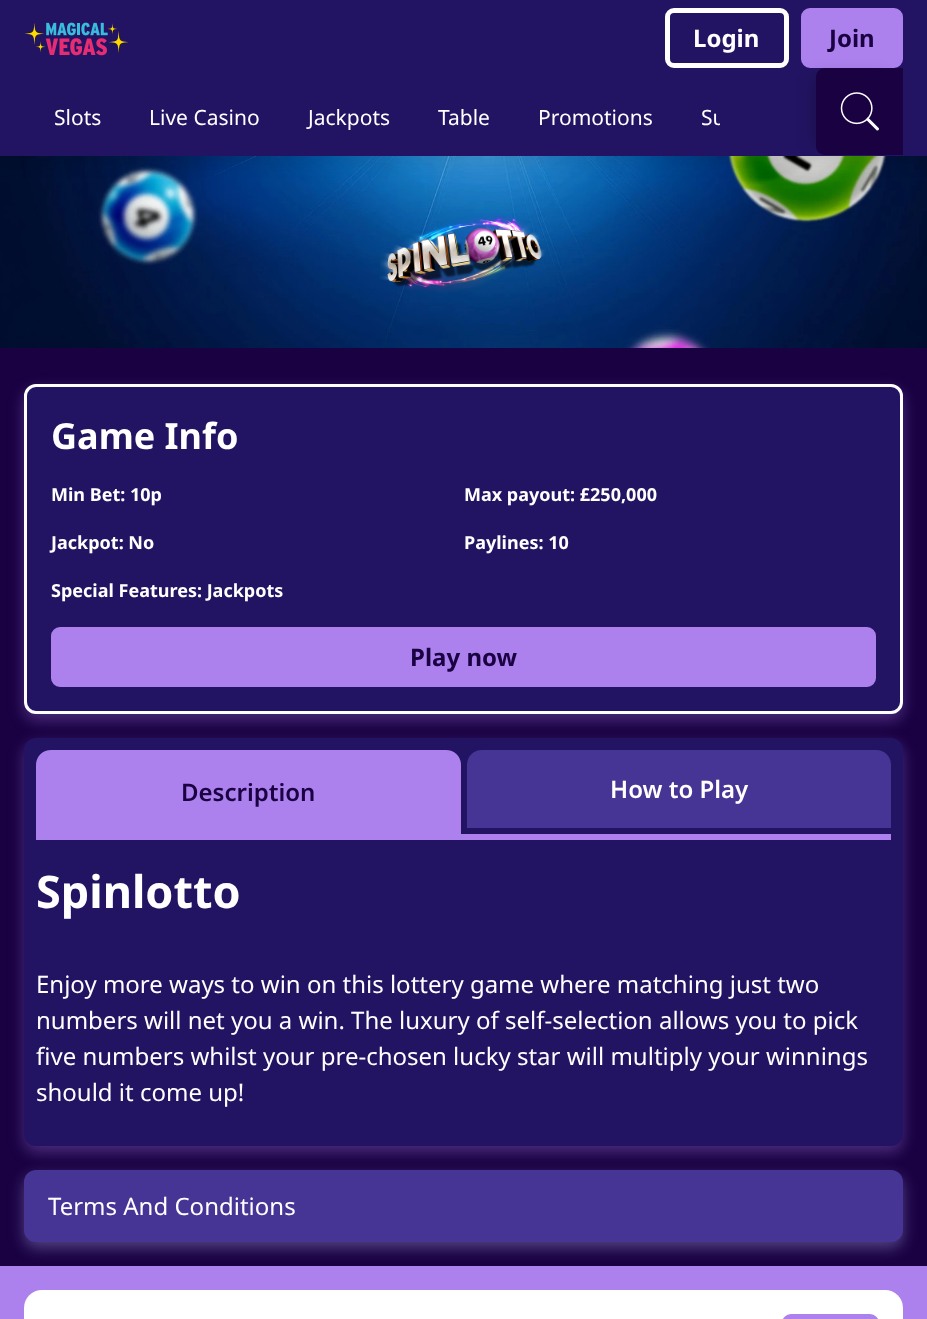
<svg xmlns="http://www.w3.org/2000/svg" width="927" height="1319">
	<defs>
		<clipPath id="clip1"><rect x="24" y="84" width="696" height="54" /></clipPath>
	</defs>
	<rect width="100%" height="100%" fill="#190142" />
	<image x="0" y="156" width="927" height="192" href="assets/img3.png" />
	<rect x="0" y="8" width="927" height="156" fill="#000000" fill-opacity="0.1" filter="blur(7.5px)" />
	<rect x="0" y="0" width="927" height="156" fill="#231463" />
	<image x="24" y="22" width="105" height="34" href="assets/img1.png" />
	<rect x="667.5" y="10.5" width="119" height="55" rx="6.5" fill="none" stroke="#FFFFFF" stroke-width="5" />
	<text x="693" y="47" font-family="Noto Sans" font-size="24" font-weight="700" fill="#FFFFFF">Login</text>
	<rect x="803.5" y="10.5" width="97" height="55" rx="6.5" fill="#AC81EE" stroke="#AC81EE" stroke-width="5" />
	<text x="829" y="47" font-family="Noto Sans" font-size="24" font-weight="700" fill="#190142">Join</text>
	<g font-family="Noto Sans" font-size="21" fill="#FFFFFF">
		<text x="54" y="125">Slots</text>
		<text x="149" y="125">Live Casino</text>
		<text x="308" y="125">Jackpots</text>
		<text x="438" y="125">Table</text>
		<text x="538" y="125">Promotions</text>
	</g>
	<g clip-path="url(#clip1)">
		<text x="701" y="125" font-family="Noto Sans" font-size="21" fill="#FFFFFF">Su</text>
	</g>
	<rect x="812" y="75" width="72" height="72" rx="1.5" fill="#000000" fill-opacity="0.2" filter="blur(7.5px)" />
	<path d="M825 68H903V155H825C820 155 816 151 816 146V77C816 72 820 68 825 68Z" fill="#190142" />
	<image x="840" y="92" width="39" height="39" href="assets/img2.png" />
	<image x="380" y="214" width="165" height="79" href="assets/img4.png" />
	<rect x="24" y="390" width="879" height="330" rx="12" fill="#AC81EE" fill-opacity="0.35" filter="blur(7.5px)" />
	<rect x="25.5" y="385.5" width="876" height="327" rx="10.5" fill="#231463" stroke="#FFFFFF" stroke-width="3" />
	<text x="51" y="449" font-family="Noto Sans" font-size="36" font-weight="700" fill="#FFFFFF">Game Info</text>
	<g font-family="Noto Sans" font-size="18" font-weight="700" fill="#FFFFFF">
		<text x="51" y="501">Min Bet: 10p</text>
		<text x="464" y="501">Max payout: £250,000</text>
		<text x="51" y="549">Jackpot: No</text>
		<text x="464" y="549">Paylines: 10</text>
		<text x="51" y="597">Special Features: Jackpots</text>
	</g>
	<rect x="53.5" y="629.5" width="820" height="55" rx="6.5" fill="#AC81EE" stroke="#AC81EE" stroke-width="5" />
	<text x="410" y="666" font-family="Noto Sans" font-size="24" font-weight="700" fill="#190142">Play now</text>
	<rect x="24" y="744" width="879" height="408" rx="12" fill="#AC81EE" fill-opacity="0.35" filter="blur(7.5px)" />
	<rect x="24" y="738" width="879" height="408" rx="12" fill="#231463" />
	<rect x="36" y="834" width="855" height="6" fill="#AC81EE" />
	<path d="M51 750H446C454.5 750 461 756.5 461 765V834H36V765C36 756.5 42.5 750 51 750Z" fill="#AC81EE" />
	<text x="181" y="801" font-family="Noto Sans" font-size="24" font-weight="600" fill="#190142">Description</text>
	<path d="M482 750H876C884.5 750 891 756.5 891 765V828H467V765C467 756.5 473.5 750 482 750Z" fill="#473595" />
	<text x="610" y="798" font-family="Noto Sans" font-size="24" font-weight="600" fill="#FFFFFF">How to Play</text>
	<text x="36" y="908" font-family="Noto Sans" font-size="45" font-weight="700" fill="#FFFFFF">Spinlotto</text>
	<g font-family="Noto Sans" font-size="24" fill="#FFFFFF">
		<text x="36" y="993">Enjoy more ways to win on this lottery game where matching just two</text>
		<text x="36" y="1029">numbers will net you a win. The luxury of self-selection allows you to pick</text>
		<text x="36" y="1065">five numbers whilst your pre-chosen lucky star will multiply your winnings</text>
		<text x="36" y="1101">should it come up!</text>
	</g>
	<rect x="0" y="1266" width="927" height="53" fill="#AC81EE" />
	<rect x="24" y="1176" width="879" height="72" rx="12" fill="#BEBDFF" fill-opacity="0.35" filter="blur(7.5px)" />
	<rect x="24" y="1170" width="879" height="72" rx="12" fill="#473595" />
	<text x="48" y="1215" font-family="Noto Sans" font-size="24" fill="#FFFFFF">Terms And Conditions</text>
	<rect x="24" y="1290" width="879" height="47" rx="18" fill="#FFFFFF" />
	<rect x="784.5" y="1316.5" width="92" height="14" rx="6.5" fill="none" stroke="#AC81EE" stroke-width="5" />
</svg>
